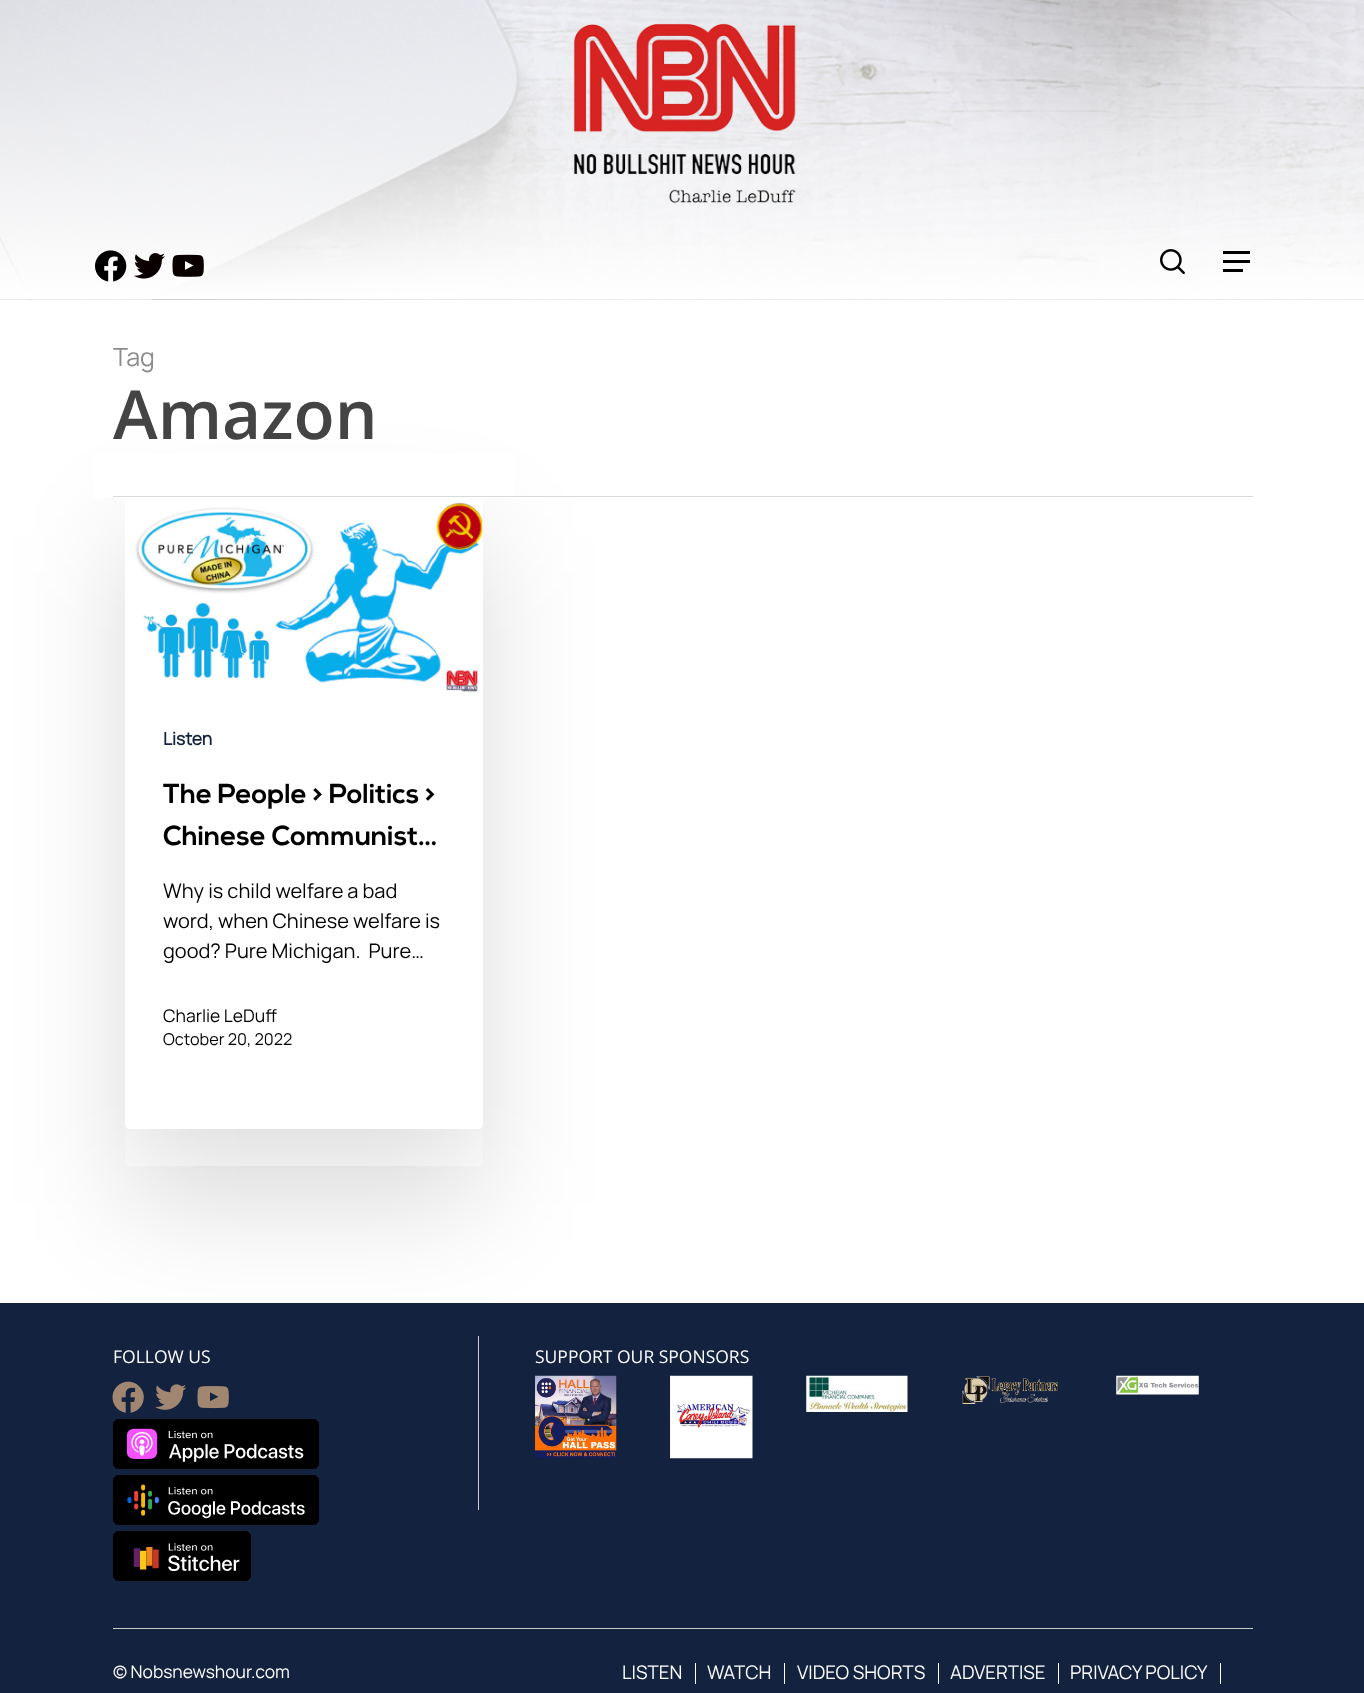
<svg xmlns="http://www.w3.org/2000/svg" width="1364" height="1693">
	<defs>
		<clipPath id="clip1"><path d="M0 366H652V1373H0ZM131 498H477C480.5 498 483 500.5 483 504V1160C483 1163.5 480.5 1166 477 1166H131C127.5 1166 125 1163.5 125 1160V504C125 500.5 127.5 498 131 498Z" clip-rule="evenodd" /></clipPath>
		<clipPath id="clip2"><rect x="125" y="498" width="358" height="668" rx="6" /></clipPath>
		<clipPath id="clip3"><path d="M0 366H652V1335H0ZM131 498H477C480.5 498 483 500.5 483 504V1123C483 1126.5 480.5 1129 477 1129H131C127.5 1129 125 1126.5 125 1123V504C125 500.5 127.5 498 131 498Z" clip-rule="evenodd" /></clipPath>
		<clipPath id="clip4"><rect x="163" y="775" width="282" height="85" /></clipPath>
	</defs>
	<rect width="100%" height="100%" fill="#FFFFFF" />
	<image x="0" y="0" width="1364" height="300" href="assets/img1.png" />
	<image x="573" y="23" width="223" height="181" href="assets/img2.png" />
	<image x="95" y="250" width="32" height="32" href="assets/img3.png" />
	<image x="134" y="253" width="31" height="26" href="assets/img4.png" />
	<image x="172" y="254" width="32" height="23" href="assets/img5.png" />
	<image x="1160" y="249" width="25" height="25" href="assets/img6.png" />
	<rect x="1223" y="251" width="27" height="3" fill="#000000" />
	<rect x="1223" y="269" width="20" height="3" fill="#000000" />
	<rect x="1223" y="260" width="27" height="3" fill="#000000" />
	<g clip-path="url(#clip1)">
		<rect x="125" y="535" width="358" height="669" rx="6" fill="#000000" fill-opacity="0.14" filter="blur(56px)" />
	</g>
	<image x="135" y="498" width="348" height="195" href="assets/img7.png" />
	<rect x="482" y="763" width="1" height="366" fill="#FFFFFF" />
	<g clip-path="url(#clip2)">
		<g clip-path="url(#clip3)">
			<rect x="125" y="535" width="358" height="631" rx="6" fill="#000000" fill-opacity="0.14" filter="blur(56px)" />
		</g>
	</g>
	<rect x="93" y="453" width="422" height="45" fill="#FFFFFF" />
	<rect x="113" y="496" width="1140" height="1" fill="#D9D9D9" />
	<text x="113" y="366" font-family="Manrope" font-size="25" font-weight="200" fill="#8C8C8C">Tag</text>
	<text x="113" y="439" font-family="Open Sans" font-size="67.5" font-weight="600" fill="#444444">Amazon</text>
	<rect x="482" y="698" width="1" height="65" fill="#FFFFFF" />
	<text x="163" y="745" font-family="Manrope" font-size="17.5" font-weight="700" fill="#13223E">Listen</text>
	<g clip-path="url(#clip4)">
		<text x="163" y="803" font-family="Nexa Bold" font-size="27.5" font-weight="700" fill="#000000">The People &gt; Politics &gt;</text>
	</g>
	<text x="163" y="845" font-family="Nexa Bold" font-size="27.5" font-weight="700" fill="#000000">Chinese Communist…</text>
	<g font-family="Manrope" font-size="20" font-weight="200" fill="#000000">
		<text x="163" y="898">Why is child welfare a bad</text>
		<text x="163" y="928">word, when Chinese welfare is</text>
		<text x="163" y="958" xml:space="preserve">good? Pure Michigan.  Pure…</text>
	</g>
	<text x="163" y="1022" font-family="Manrope" font-size="17.5" font-weight="200" fill="#000000">Charlie LeDuff</text>
	<text x="163" y="1045" font-family="Manrope" font-size="16.25" font-weight="200" fill="#000000">October 20, 2022</text>
	<rect x="0" y="1303" width="1364" height="390" fill="#13223E" />
	<rect x="113" y="1628" width="1140" height="1" fill="#CCCCCC" />
	<text x="113" y="1363" font-family="Open Sans" font-size="17.5" fill="#FFFFFF">FOLLOW US</text>
	<image x="112" y="1381" width="32" height="32" href="assets/img8.png" />
	<image x="155" y="1384" width="32" height="26" href="assets/img9.png" />
	<image x="197" y="1386" width="32" height="23" href="assets/img10.png" />
	<rect x="113" y="1419" width="206" height="50" rx="6" fill="#000000" />
	<image x="126" y="1428" width="178" height="34" href="assets/img11.png" />
	<rect x="113.5" y="1419.5" width="205" height="49" rx="5.5" fill="none" stroke="#000000" />
	<rect x="113" y="1475" width="206" height="50" rx="6" fill="#000000" />
	<image x="127" y="1484" width="178" height="35" href="assets/img12.png" />
	<rect x="113.5" y="1475.5" width="205" height="49" rx="5.5" fill="none" stroke="#000000" />
	<rect x="113" y="1531" width="138" height="50" rx="6" fill="#000000" />
	<image x="133" y="1543" width="107" height="28" href="assets/img13.png" />
	<rect x="113.5" y="1531.5" width="137" height="49" rx="5.5" fill="none" stroke="#000000" />
	<rect x="478" y="1336" width="1" height="174" fill="#CCCCCC" />
	<text x="535" y="1363" font-family="Open Sans" font-size="17.5" fill="#FFFFFF">SUPPORT OUR SPONSORS</text>
	<image x="535" y="1375" width="82" height="84" href="assets/img14.png" />
	<image x="670" y="1375" width="83" height="84" href="assets/img15.png" />
	<image x="806" y="1375" width="102" height="37" href="assets/img16.png" />
	<image x="962" y="1376" width="96" height="28" href="assets/img17.png" />
	<image x="1116" y="1375" width="83" height="20" href="assets/img18.png" />
	<text x="113" y="1678" font-family="Manrope" font-size="17.5" font-weight="200" fill="#FFFFFF">© Nobsnewshour.com</text>
	<text x="622" y="1679" font-family="Manrope" font-size="18.75" font-weight="200" fill="#FFFFFF">LISTEN</text>
	<rect x="695" y="1663" width="1" height="21" fill="#FFFFFF" />
	<text x="707" y="1679" font-family="Manrope" font-size="18.75" font-weight="200" fill="#FFFFFF">WATCH</text>
	<rect x="784" y="1663" width="1" height="21" fill="#FFFFFF" />
	<text x="797" y="1679" font-family="Manrope" font-size="18.75" font-weight="200" fill="#FFFFFF">VIDEO SHORTS</text>
	<rect x="938" y="1663" width="1" height="21" fill="#FFFFFF" />
	<text x="950" y="1679" font-family="Manrope" font-size="18.75" font-weight="200" fill="#FFFFFF">ADVERTISE</text>
	<rect x="1058" y="1663" width="1" height="21" fill="#FFFFFF" />
	<text x="1070" y="1679" font-family="Manrope" font-size="18.75" font-weight="200" fill="#FFFFFF">PRIVACY POLICY</text>
	<rect x="1220" y="1663" width="1" height="21" fill="#FFFFFF" />
</svg>
